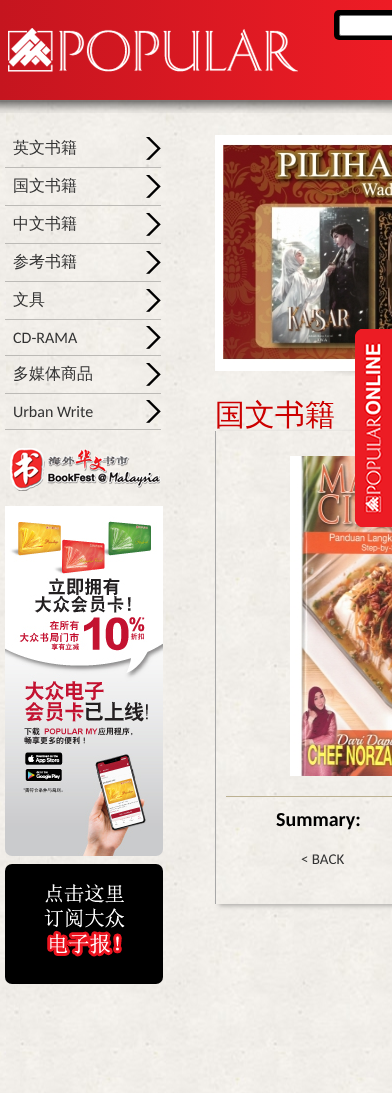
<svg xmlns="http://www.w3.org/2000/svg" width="392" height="1093">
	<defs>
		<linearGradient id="g1" gradientUnits="userSpaceOnUse" x1="0" y1="50" x2="392" y2="50"><stop offset="0" stop-color="#C5151F" /><stop offset="1" stop-color="#EE1C25" /></linearGradient>
		<clipPath id="clip1"><path d="M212 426H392V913H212ZM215 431H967V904H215Z" clip-rule="evenodd" /></clipPath>
	</defs>
	<rect width="100%" height="100%" fill="#FFFFFF" />
	<image x="0" y="100" width="392" height="993" href="assets/img1.png" />
	<rect x="0" y="0" width="392" height="100" fill="url(#g1)" />
	<rect x="334" y="10" width="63" height="30" rx="5" fill="#000000" />
	<rect x="339.5" y="15.5" width="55" height="20" rx="1.5" fill="#FFFFFF" stroke="#767676" />
	<image x="8" y="28" width="290" height="44" href="assets/img2.png" />
	<rect x="219" y="139" width="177" height="228" fill="none" stroke="#FFFFFF" stroke-width="8" />
	<image x="223" y="143" width="169" height="220" href="assets/img17.png" />
	<g clip-path="url(#clip1)">
		<rect x="219" y="433" width="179" height="473" fill="#B2B0AD" filter="blur(2px)" />
	</g>
	<image x="290" y="456" width="102" height="320" href="assets/img18.png" />
	<image x="355" y="329" width="37" height="198" href="assets/img3.png" />
	<image x="0" y="100" width="392" height="13" href="assets/img4.png" />
	<image x="146" y="137" width="15" height="23" href="assets/img5.png" />
	<rect x="5" y="167" width="156" height="1" fill="#BCBAB6" />
	<text x="13" y="153" font-family="WenQuanYi Zen Hei" font-size="16" font-weight="500" fill="#333333">英文书籍</text>
	<image x="146" y="175" width="15" height="23" href="assets/img6.png" />
	<rect x="5" y="205" width="156" height="1" fill="#BCBAB6" />
	<text x="13" y="191" font-family="WenQuanYi Zen Hei" font-size="16" font-weight="500" fill="#333333">国文书籍</text>
	<image x="146" y="213" width="15" height="23" href="assets/img7.png" />
	<rect x="5" y="243" width="156" height="1" fill="#BCBAB6" />
	<text x="13" y="229" font-family="WenQuanYi Zen Hei" font-size="16" font-weight="500" fill="#333333">中文书籍</text>
	<image x="146" y="251" width="15" height="23" href="assets/img8.png" />
	<rect x="5" y="281" width="156" height="1" fill="#BCBAB6" />
	<text x="13" y="267" font-family="WenQuanYi Zen Hei" font-size="16" font-weight="500" fill="#333333">参考书籍</text>
	<image x="146" y="289" width="15" height="23" href="assets/img9.png" />
	<rect x="5" y="319" width="156" height="1" fill="#BCBAB6" />
	<text x="13" y="305" font-family="WenQuanYi Zen Hei" font-size="16" font-weight="500" fill="#333333">文具</text>
	<image x="146" y="326" width="15" height="23" href="assets/img10.png" />
	<rect x="5" y="355" width="156" height="1" fill="#BCBAB6" />
	<text x="13" y="343" font-family="Carlito" font-size="16" fill="#333333">CD-RAMA</text>
	<image x="146" y="363" width="15" height="23" href="assets/img11.png" />
	<rect x="5" y="393" width="156" height="1" fill="#BCBAB6" />
	<text x="13" y="379" font-family="WenQuanYi Zen Hei" font-size="16" font-weight="500" fill="#333333">多媒体商品</text>
	<image x="146" y="400" width="15" height="23" href="assets/img12.png" />
	<rect x="5" y="429" width="156" height="1" fill="#BCBAB6" />
	<text x="13" y="417" font-family="Carlito" font-size="16" fill="#333333">Urban Write</text>
	<image x="10" y="448" width="151" height="43" href="assets/img13.png" />
	<image x="5" y="506" width="158" height="350" href="assets/img14.png" />
	<rect x="5" y="864" width="158" height="120" rx="7" fill="#000000" />
	<image x="44" y="884" width="81" height="73" href="assets/img15.png" />
	<image x="324" y="371" width="31" height="5" href="assets/img16.png" />
	<text x="215" y="425" font-family="WenQuanYi Zen Hei" font-size="30" font-weight="500" fill="#CC0000">国文书籍</text>
	<rect x="215" y="431" width="1" height="473" fill="#A8A8A8" />
	<rect x="226" y="796" width="166" height="1" fill="#BCB192" />
	<text x="276" y="826" font-family="Carlito" font-size="20" font-weight="700" fill="#000000">Summary:</text>
	<text x="301" y="864" font-family="Carlito" font-size="15" fill="#333333">&lt; BACK</text>
</svg>
